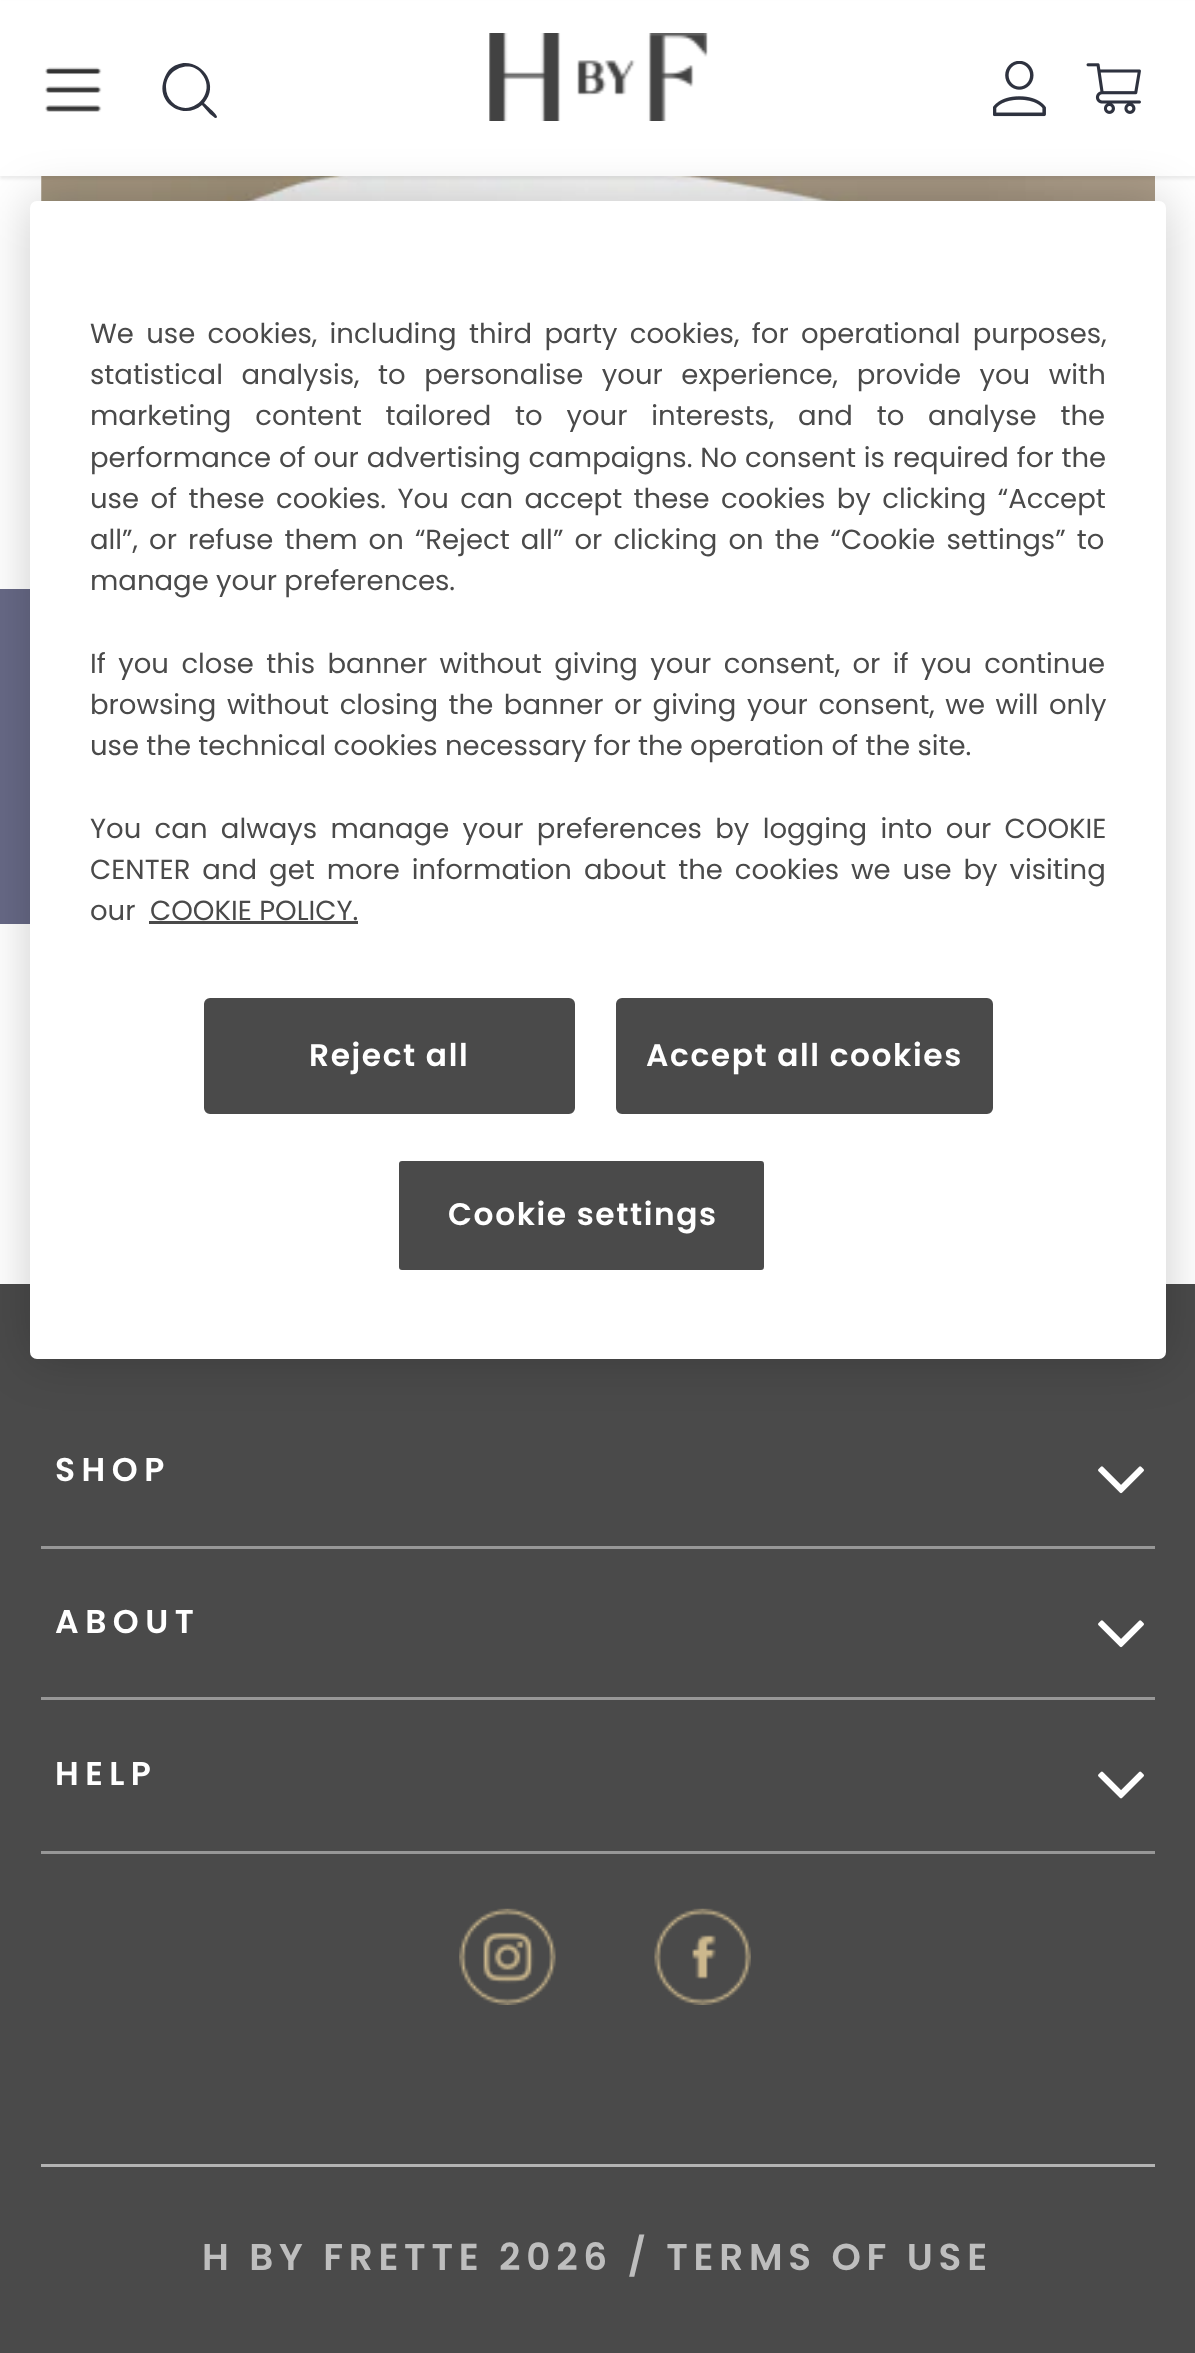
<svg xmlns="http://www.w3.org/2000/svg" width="1195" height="2353">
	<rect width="100%" height="100%" fill="#FFFFFF" />
	<image x="41" y="176" width="1114" height="25" href="assets/img5.png" />
	<rect x="0" y="3" width="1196" height="176" fill="#000000" fill-opacity="0.07" filter="blur(1.5px)" />
	<rect x="0" y="1" width="1195" height="175" fill="#FFFFFF" />
	<image x="45" y="67" width="57" height="45" href="assets/img1.png" />
	<path d="M169 70C191 49 224 80 204 103C206 105 218 115 217 117C216 120 213 116 210 114L202 105C185 120 158 105 163 83C164 78 166 74 169 70ZM172 102C190 120 219 93 201 73C189 59 166 70 166 87C166 93 168 98 172 102Z" fill="#2E323F" fill-rule="evenodd" />
	<image x="489" y="33" width="219" height="88" href="assets/img2.png" />
	<image x="993" y="61" width="53" height="56" href="assets/img3.png" />
	<image x="1086" y="63" width="55" height="51" href="assets/img4.png" />
	<rect x="0" y="589" width="30" height="335" fill="#676986" />
	<rect x="0" y="1284" width="1195" height="1069" fill="#4A4A4A" />
	<rect x="30" y="201" width="1136" height="1158" rx="7" fill="#000000" fill-opacity="0.2" filter="blur(25px)" />
	<rect x="30" y="201" width="1136" height="1158" rx="7" fill="#FFFFFF" />
	<g font-family="Poppins" font-size="27.5" fill="#4A4A4A">
		<text x="90" y="343" word-spacing="5">We use cookies, including third party cookies, for operational purposes,</text>
		<text x="90" y="384" word-spacing="11.25">statistical analysis, to personalise your experience, provide you with</text>
		<text x="90" y="425" word-spacing="16.5">marketing content tailored to your interests, and to analyse the</text>
		<text x="90" y="467" word-spacing="0.5">performance of our advertising campaigns. No consent is required for the</text>
		<text x="90" y="508" word-spacing="4.1">use of these cookies. You can accept these cookies by clicking “Accept</text>
		<text x="90" y="549" word-spacing="3.75">all”, or refuse them on “Reject all” or clicking on the “Cookie settings” to</text>
		<text x="90" y="590">manage your preferences.</text>
		<text x="90" y="673" word-spacing="5.1">If you close this banner without giving your consent, or if you continue</text>
		<text x="90" y="714" word-spacing="3.25">browsing without closing the banner or giving your consent, we will only</text>
		<text x="90" y="755">use the technical cookies necessary for the operation of the site.</text>
		<text x="90" y="838" word-spacing="6">You can always manage your preferences by logging into our COOKIE</text>
		<text x="90" y="879" word-spacing="4.6">CENTER and get more information about the cookies we use by visiting</text>
		<text x="90" y="920">our</text>
		<text x="150" y="920">COOKIE POLICY.</text>
	</g>
	<rect x="149" y="921" width="209" height="3" fill="#4A4A4A" />
	<rect x="205.5" y="999.5" width="368" height="113" rx="4.5" fill="#4A4A4A" stroke="#4A4A4A" stroke-width="3" />
	<text x="309" y="1066" font-family="Poppins" font-size="31.25" font-weight="600" letter-spacing="1.6" fill="#FFFFFF">Reject all</text>
	<rect x="617.5" y="999.5" width="374" height="113" rx="4.5" fill="#4A4A4A" stroke="#4A4A4A" stroke-width="3" />
	<text x="646" y="1066" font-family="Poppins" font-size="31.25" font-weight="600" letter-spacing="1.6" fill="#FFFFFF">Accept all cookies</text>
	<rect x="397.5" y="1159.5" width="368" height="112" rx="4.5" fill="#4A4A4A" stroke="#FFFFFF" stroke-width="3" />
	<text x="448" y="1225" font-family="Poppins" font-size="31.25" font-weight="600" letter-spacing="1.6" fill="#FFFFFF">Cookie settings</text>
	<rect x="41" y="1546" width="1114" height="3" fill="#979797" />
	<text x="55" y="1481" font-family="Poppins" font-size="33" font-weight="600" letter-spacing="6.5" fill="#FFFFFF">SHOP</text>
	<image x="1098" y="1466" width="46" height="28" href="assets/img6.png" />
	<rect x="41" y="1697" width="1114" height="3" fill="#979797" />
	<text x="55" y="1633" font-family="Poppins" font-size="33" font-weight="600" letter-spacing="6.5" fill="#FFFFFF">ABOUT</text>
	<image x="1098" y="1620" width="46" height="28" href="assets/img6.png" />
	<rect x="41" y="1851" width="1114" height="3" fill="#979797" />
	<text x="55" y="1785" font-family="Poppins" font-size="33" font-weight="600" letter-spacing="6.5" fill="#FFFFFF">HELP</text>
	<image x="1098" y="1771" width="46" height="28" href="assets/img7.png" />
	<image x="459" y="1908" width="97" height="97" href="assets/img8.png" />
	<image x="654" y="1908" width="97" height="97" href="assets/img9.png" />
	<rect x="41" y="2164" width="1114" height="3" fill="#B3B3B3" />
	<text x="202" y="2270" font-family="Poppins" font-size="37.4" font-weight="600" letter-spacing="5.75" fill="#BEBEBE">H BY FRETTE 2026 / TERMS OF USE</text>
</svg>
